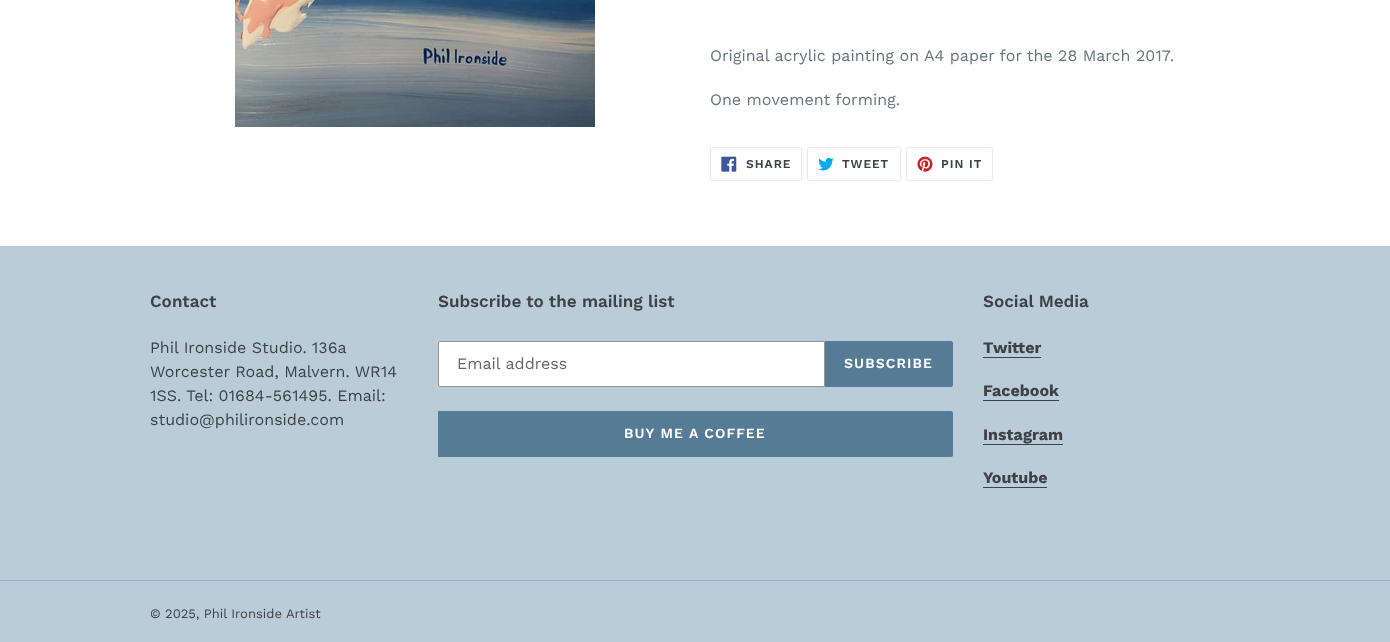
<svg xmlns="http://www.w3.org/2000/svg" width="1390" height="642">
	<rect width="100%" height="100%" fill="#FFFFFF" />
	<image x="235" y="0" width="360" height="127" href="assets/img1.png" />
	<g font-family="Work Sans" font-size="16" fill="#69727B">
		<text x="710" y="61">Original acrylic painting on A4 paper for the 28 March 2017.</text>
		<text x="710" y="105">One movement forming.</text>
	</g>
	<rect x="710.5" y="147.5" width="91" height="33" rx="1.5" fill="none" stroke="#E8E9EB" />
	<image x="721" y="156" width="16" height="16" href="assets/img2.png" />
	<text x="746" y="168" font-family="Work Sans" font-size="12" font-weight="600" letter-spacing="1" fill="#3D4246">SHARE</text>
	<rect x="807.5" y="147.5" width="93" height="33" rx="1.5" fill="none" stroke="#E8E9EB" />
	<image x="818" y="157" width="16" height="14" href="assets/img3.png" />
	<text x="842" y="168" font-family="Work Sans" font-size="12" font-weight="600" letter-spacing="1" fill="#3D4246">TWEET</text>
	<rect x="906.5" y="147.5" width="86" height="33" rx="1.5" fill="none" stroke="#E8E9EB" />
	<image x="917" y="156" width="16" height="16" href="assets/img4.png" />
	<text x="941" y="168" font-family="Work Sans" font-size="12" font-weight="600" letter-spacing="1" fill="#3D4246">PIN IT</text>
	<rect x="0" y="246" width="1390" height="396" fill="#BBCCD9" />
	<text x="150" y="307" font-family="Work Sans" font-size="17" font-weight="600" fill="#3D4246">Contact</text>
	<g font-family="Work Sans" font-size="16" fill="#3D4246">
		<text x="150" y="353">Phil Ironside Studio. 136a</text>
		<text x="150" y="377">Worcester Road, Malvern. WR14</text>
		<text x="150" y="401">1SS. Tel: 01684-561495. Email:</text>
		<text x="150" y="425">studio@philironside.com</text>
	</g>
	<text x="438" y="307" font-family="Work Sans" font-size="17" font-weight="600" fill="#3D4246">Subscribe to the mailing list</text>
	<path d="M440 341.5H824.5V386.5H440C439 386.5 438.5 386 438.5 385V343C438.5 342 439 341.5 440 341.5Z" fill="#FFFFFF" stroke="#949494" />
	<text x="457" y="369" font-family="Work Sans" font-size="16" fill="#666666">Email address</text>
	<path d="M825 341H951C952 341 953 342 953 343V385C953 386 952 387 951 387H825Z" fill="#557B97" />
	<text x="844" y="368" font-family="Work Sans" font-size="14" font-weight="600" letter-spacing="1.1" fill="#FFFFFF">SUBSCRIBE</text>
	<path d="M438 411H951C952 411 953 412 953 413V455C953 456 952 457 951 457H438Z" fill="#557B97" />
	<text x="624" y="438" font-family="Work Sans" font-size="14" font-weight="600" letter-spacing="1.1" fill="#FFFFFF">BUY ME A COFFEE</text>
	<text x="983" y="307" font-family="Work Sans" font-size="17" font-weight="600" fill="#3D4246">Social Media</text>
	<text x="983" y="353" font-family="Work Sans" font-size="16" font-weight="700" fill="#3D4246">Twitter</text>
	<rect x="983" y="357" width="58" height="1" fill="#3D4246" />
	<text x="983" y="396" font-family="Work Sans" font-size="16" font-weight="700" fill="#3D4246">Facebook</text>
	<rect x="983" y="400" width="76" height="1" fill="#3D4246" />
	<text x="983" y="440" font-family="Work Sans" font-size="16" font-weight="700" fill="#3D4246">Instagram</text>
	<rect x="983" y="444" width="80" height="1" fill="#3D4246" />
	<text x="983" y="483" font-family="Work Sans" font-size="16" font-weight="700" fill="#3D4246">Youtube</text>
	<rect x="983" y="487" width="64" height="1" fill="#3D4246" />
	<rect x="0" y="580" width="1390" height="1" fill="#9AB3C7" />
	<text x="150" y="618" font-family="Work Sans" font-size="13" fill="#3D4246">© 2025, Phil Ironside Artist</text>
</svg>
